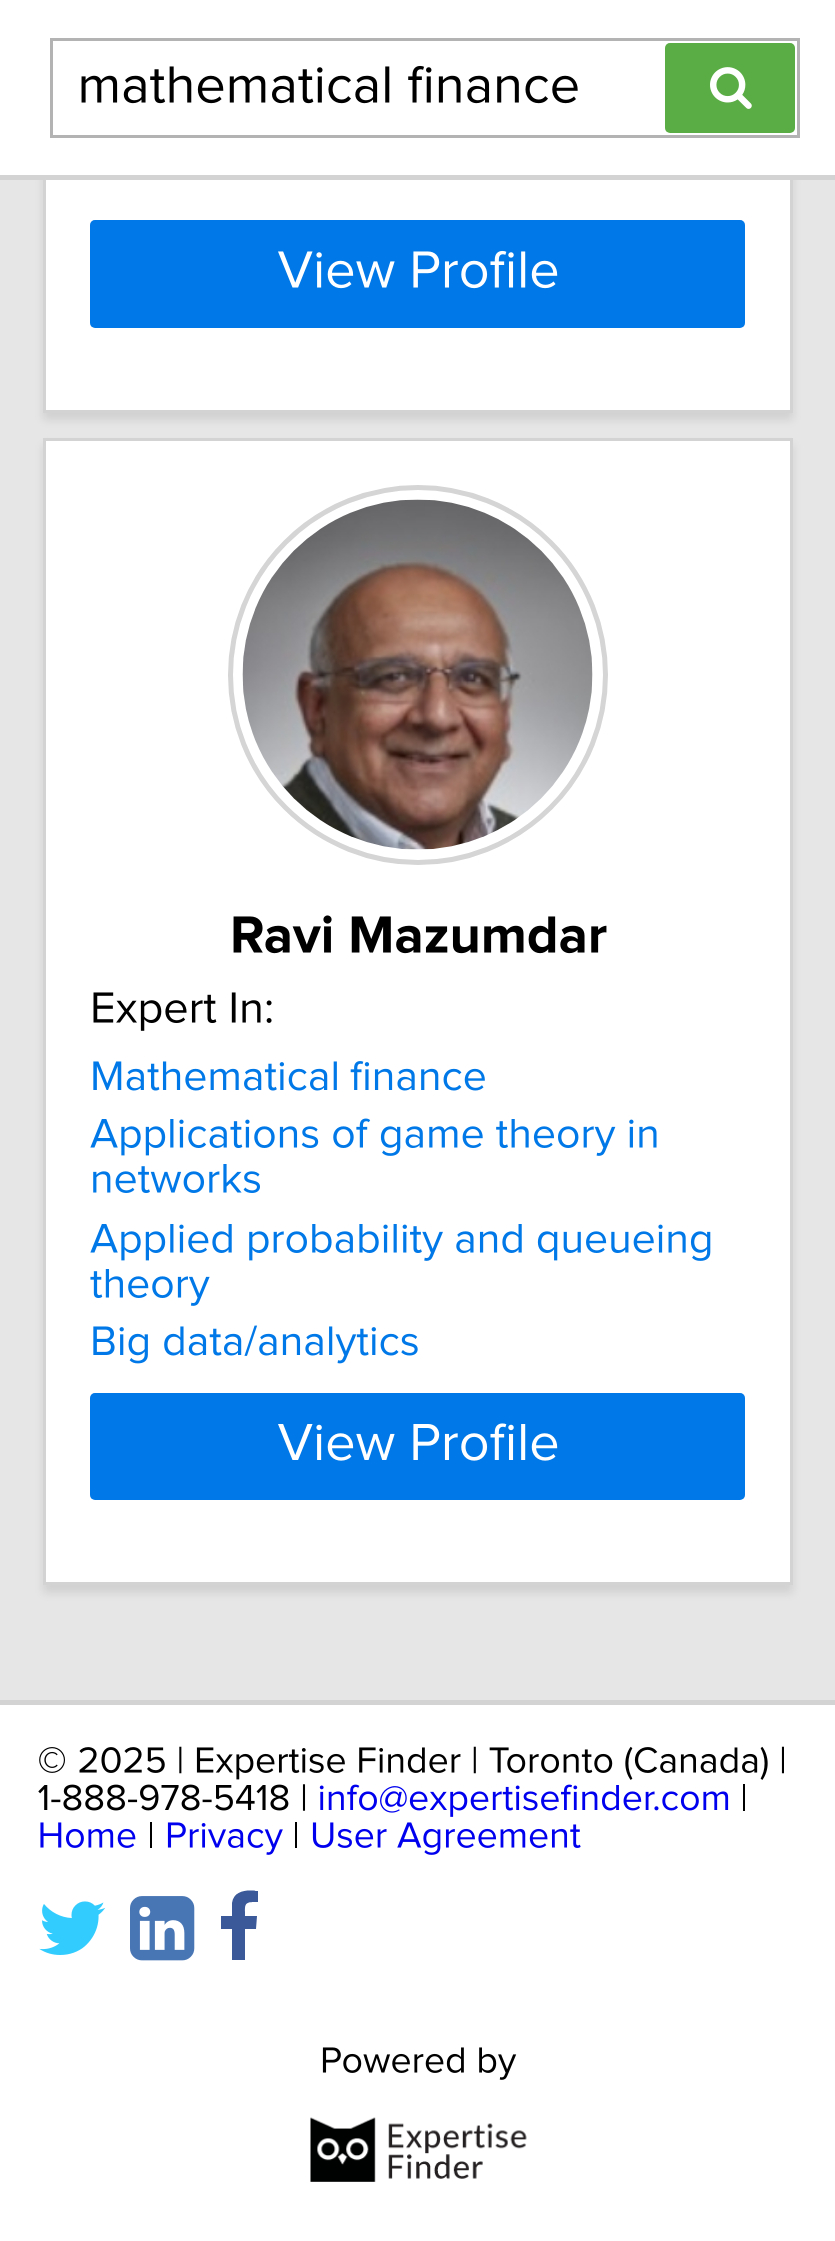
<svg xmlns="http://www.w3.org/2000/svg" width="835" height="2241">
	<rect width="100%" height="100%" fill="#E6E6E6" />
	<rect x="43" y="-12" width="750" height="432" fill="#000000" fill-opacity="0.09" filter="blur(4px)" />
	<rect x="46" y="180" width="744" height="230" fill="#FFFFFF" />
	<rect x="44.5" y="-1.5" width="747" height="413" fill="none" stroke="#D3D3D3" stroke-width="3" />
	<rect x="90" y="220" width="655" height="108" rx="5" fill="#0078E7" />
	<image x="278" y="250" width="280" height="39" href="assets/img1.png" />
	<rect x="43" y="445" width="750" height="1148" fill="#000000" fill-opacity="0.09" filter="blur(4px)" />
	<rect x="44.5" y="439.5" width="747" height="1144" fill="#FFFFFF" stroke="#D3D3D3" stroke-width="3" />
	<circle cx="418" cy="675" r="187.5" fill="none" stroke="#D5D5D5" stroke-width="5" />
	<image x="242" y="499" width="351" height="351" href="assets/img2.png" />
	<image x="233" y="915" width="374" height="39" href="assets/img3.png" />
	<image x="93" y="992" width="179" height="39" href="assets/img4.png" />
	<image x="93" y="1061" width="244" height="30" href="assets/img5.png" />
	<image x="350" y="1061" width="135" height="30" href="assets/img6.png" />
	<image x="90" y="1118" width="567" height="38" href="assets/img7.png" />
	<image x="93" y="1164" width="167" height="29" href="assets/img8.png" />
	<image x="90" y="1224" width="621" height="37" href="assets/img9.png" />
	<image x="90" y="1269" width="120" height="37" href="assets/img10.png" />
	<image x="93" y="1325" width="325" height="39" href="assets/img11.png" />
	<rect x="90" y="1393" width="655" height="107" rx="5" fill="#0078E7" />
	<image x="278" y="1423" width="280" height="38" href="assets/img12.png" />
	<rect x="0" y="0" width="835" height="175" fill="#FFFFFF" />
	<rect x="0" y="175" width="835" height="5" fill="#D3D3D3" />
	<rect x="51.5" y="39.5" width="747" height="97" fill="none" stroke="#B3B3B3" stroke-width="3" />
	<image x="81" y="65" width="497" height="39" href="assets/img13.png" />
	<rect x="665" y="43" width="130" height="90" rx="5" fill="#5AAC44" />
	<image x="710" y="67" width="42" height="42" href="assets/img14.png" />
	<rect x="0" y="1705" width="835" height="536" fill="#FFFFFF" />
	<rect x="0" y="1700" width="835" height="5" fill="#D3D3D3" />
	<image x="39" y="1747" width="26" height="26" href="assets/img15.png" />
	<image x="79" y="1746" width="705" height="34" href="assets/img16.png" />
	<image x="38" y="1784" width="268" height="27" href="assets/img17.png" />
	<image x="319" y="1784" width="410" height="33" href="assets/img18.png" />
	<rect x="743" y="1784" width="2" height="27" fill="#000000" />
	<image x="40" y="1822" width="96" height="26" href="assets/img19.png" />
	<rect x="150" y="1822" width="2" height="26" fill="#000000" />
	<image x="167" y="1822" width="116" height="33" href="assets/img20.png" />
	<rect x="295" y="1822" width="2" height="26" fill="#000000" />
	<image x="312" y="1822" width="269" height="33" href="assets/img21.png" />
	<image x="39" y="1901" width="67" height="54" href="assets/img22.png" />
	<image x="130" y="1896" width="65" height="65" href="assets/img23.png" />
	<path d="M258 1891V1902C244 1902 245 1903 245 1916H257L256 1929H245V1960H232V1929H221V1916H232V1903C234 1890 247 1890 258 1891Z" fill="#3B5998" />
	<image x="322" y="2047" width="195" height="33" href="assets/img24.png" />
	<image x="310" y="2117" width="217" height="65" href="assets/img25.png" />
</svg>
